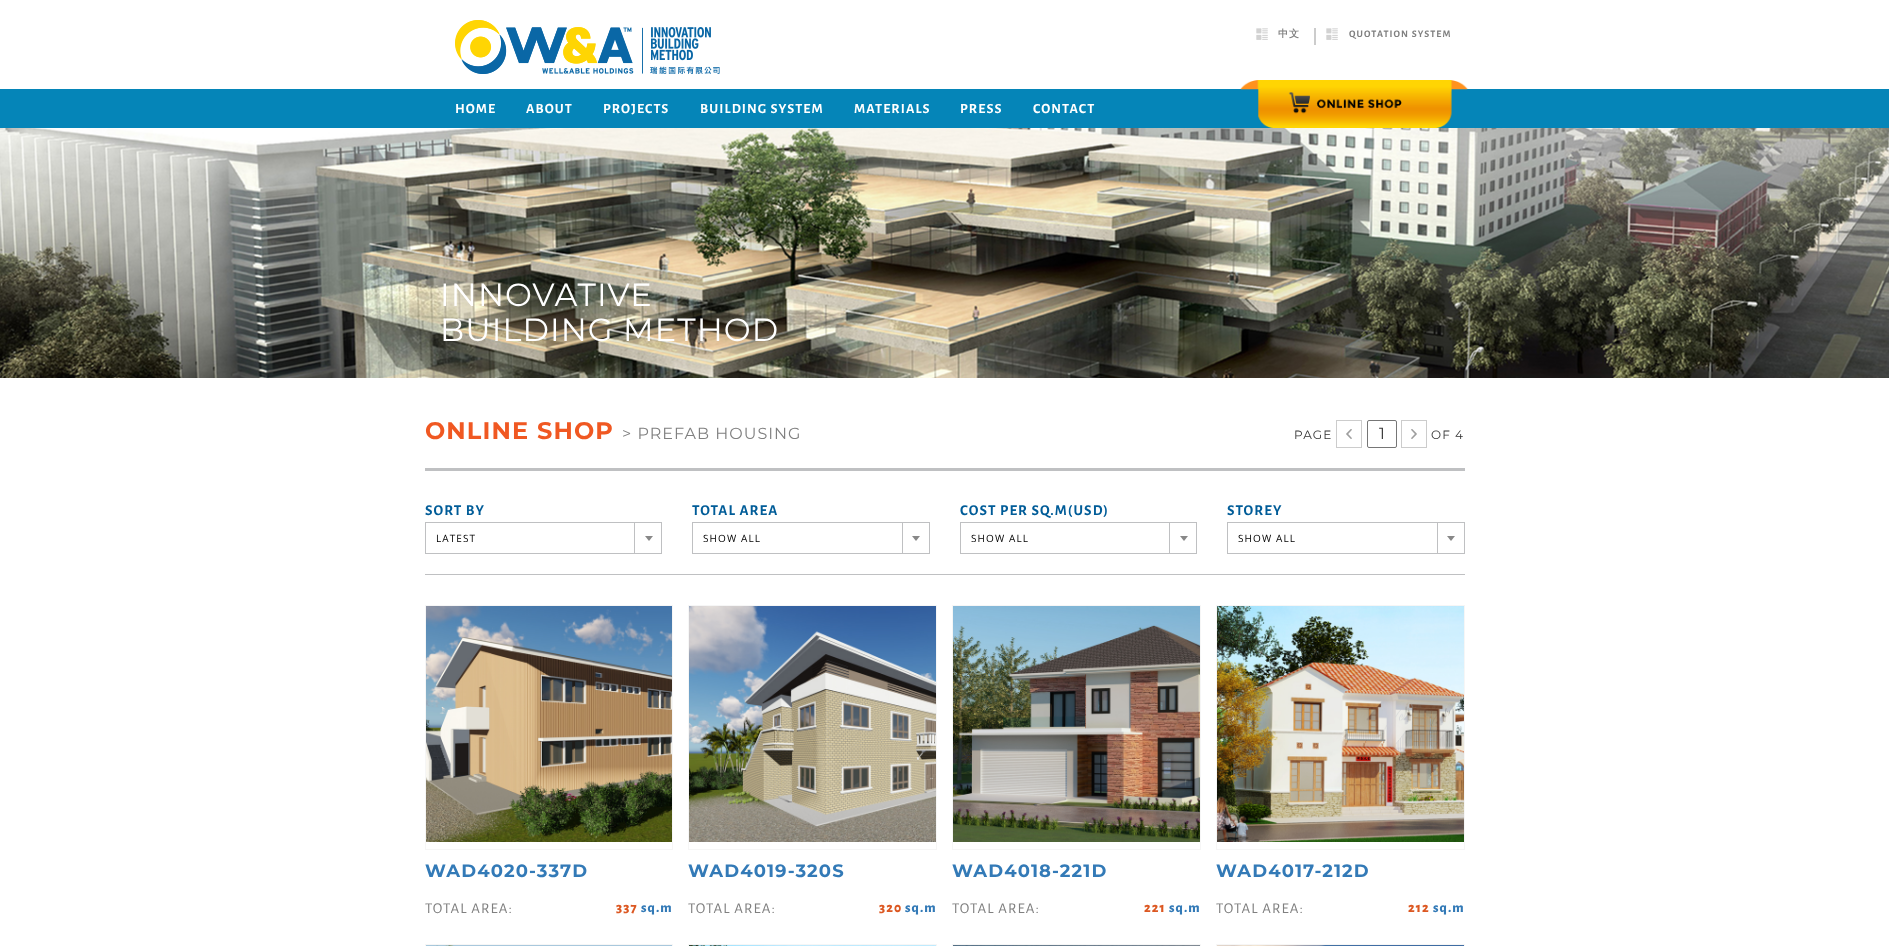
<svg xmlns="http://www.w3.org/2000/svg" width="1889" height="946">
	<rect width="100%" height="100%" fill="#FFFFFF" />
	<image x="455" y="20" width="265" height="54" href="assets/img1.png" />
	<image x="1256" y="28" width="12" height="12" href="assets/img2.png" />
	<text x="1278" y="37" font-family="WenQuanYi Zen Hei" font-size="10" font-weight="700" letter-spacing="1.1" fill="#808080">中文</text>
	<rect x="1314" y="28" width="2" height="17" fill="#CCCCCC" />
	<image x="1326" y="28" width="12" height="12" href="assets/img2.png" />
	<text x="1349" y="37" font-family="Alegreya Sans" font-size="10" font-weight="700" letter-spacing="1.1" fill="#808080">QUOTATION SYSTEM</text>
	<rect x="0" y="89" width="1889" height="39" fill="#0585B8" />
	<g font-family="Alegreya Sans" font-size="14" font-weight="700" letter-spacing="1.1" fill="#FFFFFF">
		<text x="455" y="113">HOME</text>
		<text x="526" y="113">ABOUT</text>
		<text x="603" y="113">PROJECTS</text>
		<text x="700" y="113">BUILDING SYSTEM</text>
		<text x="854" y="113">MATERIALS</text>
		<text x="960" y="113">PRESS</text>
		<text x="1033" y="113">CONTACT</text>
	</g>
	<image x="1240" y="80" width="228" height="48" href="assets/img3.png" />
	<image x="0" y="128" width="1889" height="250" href="assets/img4.png" />
	<g font-family="Montserrat" font-size="32" letter-spacing="1.1" fill="#FFFFFF">
		<text x="440" y="306">INNOVATIVE</text>
		<text x="440" y="341">BUILDING METHOD</text>
	</g>
	<text x="425" y="439" font-family="Montserrat" font-size="24" font-weight="700" letter-spacing="1.1" fill="#F05822">ONLINE SHOP</text>
	<text x="622" y="439" font-family="Montserrat" font-size="16" letter-spacing="1" fill="#808080">&gt; PREFAB HOUSING</text>
	<text x="1294" y="439" font-family="Montserrat" font-size="12" letter-spacing="1.1" fill="#333333">PAGE</text>
	<rect x="1336.5" y="420.5" width="25" height="27" fill="none" stroke="#CCCCCC" />
	<image x="1346" y="429" width="6" height="10" href="assets/img5.png" />
	<rect x="1367.5" y="420.5" width="29" height="27" rx="1.5" fill="none" stroke="#767676" />
	<text x="1379" y="439" font-family="Montserrat" font-size="16" fill="#333333">1</text>
	<rect x="1401.5" y="420.5" width="25" height="27" fill="none" stroke="#CCCCCC" />
	<image x="1411" y="429" width="6" height="10" href="assets/img6.png" />
	<text x="1431" y="439" font-family="Montserrat" font-size="12" letter-spacing="1.1" fill="#333333">OF 4</text>
	<rect x="425" y="468" width="1040" height="3" fill="#BFC0C2" />
	<text x="425" y="515" font-family="Alegreya Sans" font-size="15" font-weight="700" letter-spacing="1.1" fill="#005C98">SORT BY</text>
	<rect x="425.5" y="522.5" width="236" height="31" fill="none" stroke="#BFC0C2" />
	<text x="436" y="542" font-family="Open Sans" font-size="10" letter-spacing="1.1" fill="#000000">LATEST</text>
	<rect x="634" y="523" width="1" height="30" fill="#BFC0C2" />
	<path d="M645 536H653L649 541Z" fill="#888888" />
	<text x="692" y="515" font-family="Alegreya Sans" font-size="15" font-weight="700" letter-spacing="1.1" fill="#005C98">TOTAL AREA</text>
	<rect x="692.5" y="522.5" width="237" height="31" fill="none" stroke="#BFC0C2" />
	<text x="703" y="542" font-family="Open Sans" font-size="10" letter-spacing="1.1" fill="#000000">SHOW ALL</text>
	<rect x="902" y="523" width="1" height="30" fill="#BFC0C2" />
	<path d="M912 536H920L916 541Z" fill="#888888" />
	<text x="960" y="515" font-family="Alegreya Sans" font-size="15" font-weight="700" letter-spacing="1.1" fill="#005C98">COST PER SQ.M(USD)</text>
	<rect x="960.5" y="522.5" width="236" height="31" fill="none" stroke="#BFC0C2" />
	<text x="971" y="542" font-family="Open Sans" font-size="10" letter-spacing="1.1" fill="#000000">SHOW ALL</text>
	<rect x="1169" y="523" width="1" height="30" fill="#BFC0C2" />
	<path d="M1180 536H1188L1184 541Z" fill="#888888" />
	<text x="1227" y="515" font-family="Alegreya Sans" font-size="15" font-weight="700" letter-spacing="1.1" fill="#005C98">STOREY</text>
	<rect x="1227.5" y="522.5" width="237" height="31" fill="none" stroke="#BFC0C2" />
	<text x="1238" y="542" font-family="Open Sans" font-size="10" letter-spacing="1.1" fill="#000000">SHOW ALL</text>
	<rect x="1437" y="523" width="1" height="30" fill="#BFC0C2" />
	<path d="M1447 536H1455L1451 541Z" fill="#888888" />
	<rect x="425" y="574" width="1040" height="1" fill="#BFC0C2" />
	<rect x="425.5" y="605.5" width="247" height="244" fill="none" stroke="#F6F6F6" />
	<image x="426" y="606" width="246" height="236" href="assets/img7.png" />
	<text x="425" y="877" font-family="Montserrat" font-size="18" font-weight="700" letter-spacing="1.1" fill="#337AB7">WAD4020-337D</text>
	<text x="425" y="913" font-family="Alegreya Sans" font-size="15" letter-spacing="1.1" fill="#808080">TOTAL AREA:</text>
	<text x="616" y="912" font-family="Alegreya Sans" font-size="14" font-weight="800" letter-spacing="1.1" fill="#DC5822">337</text>
	<text x="641" y="912" font-family="Alegreya Sans" font-size="14" font-weight="800" letter-spacing="1.1" fill="#337AB7">sq.m</text>
	<rect x="688.5" y="605.5" width="248" height="244" fill="none" stroke="#F6F6F6" />
	<image x="689" y="606" width="247" height="236" href="assets/img8.png" />
	<text x="688" y="877" font-family="Montserrat" font-size="18" font-weight="700" letter-spacing="1.1" fill="#337AB7">WAD4019-320S</text>
	<text x="688" y="913" font-family="Alegreya Sans" font-size="15" letter-spacing="1.1" fill="#808080">TOTAL AREA:</text>
	<text x="879" y="912" font-family="Alegreya Sans" font-size="14" font-weight="800" letter-spacing="1.1" fill="#DC5822">320</text>
	<text x="905" y="912" font-family="Alegreya Sans" font-size="14" font-weight="800" letter-spacing="1.1" fill="#337AB7">sq.m</text>
	<rect x="952.5" y="605.5" width="248" height="244" fill="none" stroke="#F6F6F6" />
	<image x="953" y="606" width="247" height="236" href="assets/img9.png" />
	<text x="952" y="877" font-family="Montserrat" font-size="18" font-weight="700" letter-spacing="1.1" fill="#337AB7">WAD4018-221D</text>
	<text x="952" y="913" font-family="Alegreya Sans" font-size="15" letter-spacing="1.1" fill="#808080">TOTAL AREA:</text>
	<text x="1144" y="912" font-family="Alegreya Sans" font-size="14" font-weight="800" letter-spacing="1.1" fill="#DC5822">221</text>
	<text x="1169" y="912" font-family="Alegreya Sans" font-size="14" font-weight="800" letter-spacing="1.1" fill="#337AB7">sq.m</text>
	<rect x="1216.5" y="605.5" width="248" height="244" fill="none" stroke="#F6F6F6" />
	<image x="1217" y="606" width="247" height="236" href="assets/img10.png" />
	<text x="1216" y="877" font-family="Montserrat" font-size="18" font-weight="700" letter-spacing="1.1" fill="#337AB7">WAD4017-212D</text>
	<text x="1216" y="913" font-family="Alegreya Sans" font-size="15" letter-spacing="1.1" fill="#808080">TOTAL AREA:</text>
	<text x="1408" y="912" font-family="Alegreya Sans" font-size="14" font-weight="800" letter-spacing="1.1" fill="#DC5822">212</text>
	<text x="1433" y="912" font-family="Alegreya Sans" font-size="14" font-weight="800" letter-spacing="1.1" fill="#337AB7">sq.m</text>
	<rect x="425.5" y="944.5" width="247" height="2" fill="none" stroke="#F6F6F6" />
	<image x="426" y="945" width="246" height="1" href="assets/img11.png" />
	<rect x="688.5" y="944.5" width="248" height="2" fill="none" stroke="#F6F6F6" />
	<image x="689" y="945" width="247" height="1" href="assets/img12.png" />
	<rect x="952.5" y="944.5" width="248" height="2" fill="none" stroke="#F6F6F6" />
	<image x="953" y="945" width="247" height="1" href="assets/img13.png" />
	<rect x="1216.5" y="944.5" width="248" height="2" fill="none" stroke="#F6F6F6" />
	<image x="1217" y="945" width="247" height="1" href="assets/img14.png" />
</svg>
